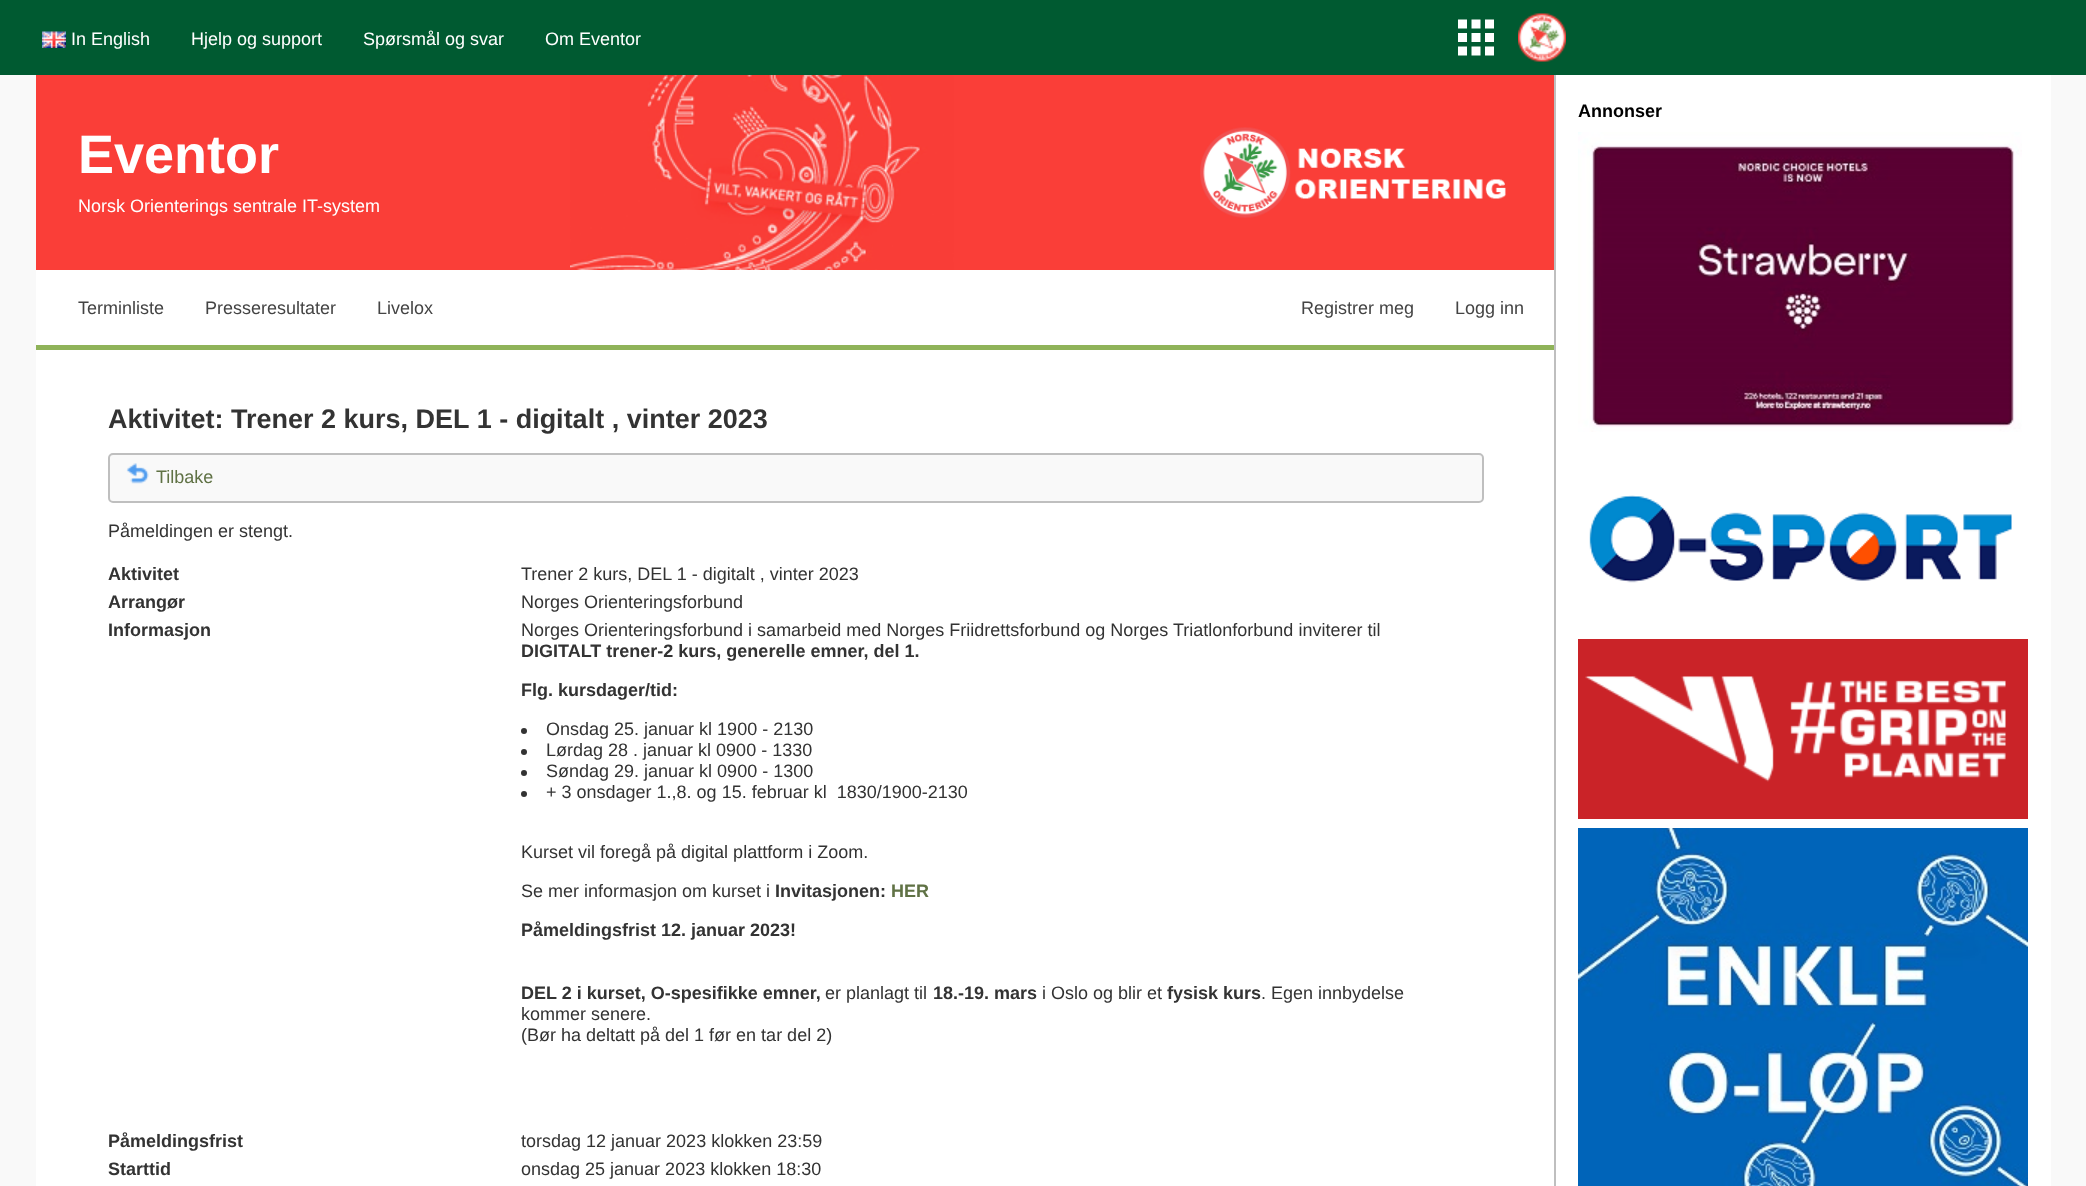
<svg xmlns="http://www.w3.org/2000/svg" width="2086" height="1186">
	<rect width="100%" height="100%" fill="#F9F9F9" />
	<rect x="0" y="0" width="2086" height="75" fill="#005A31" />
	<image x="42" y="31" width="24" height="17" href="assets/img1.png" />
	<g font-family="Liberation Sans" font-size="18" fill="#FFFFFF">
		<text x="71" y="45">In English</text>
		<text x="191" y="45">Hjelp og support</text>
		<text x="363" y="45">Spørsmål og svar</text>
		<text x="545" y="45">Om Eventor</text>
	</g>
	<image x="1458" y="19" width="36" height="37" href="assets/img2.png" />
	<image x="1518" y="13" width="48" height="49" href="assets/img3.png" />
	<rect x="36" y="75" width="2015" height="1111" fill="#FFFFFF" />
	<rect x="1554" y="75" width="2" height="1111" fill="#BFBFBF" />
	<text x="1578" y="117" font-family="Liberation Sans" font-size="18" font-weight="700" fill="#000000">Annonser</text>
	<image x="1578" y="132" width="444" height="300" href="assets/img4.png" />
	<image x="1589" y="495" width="423" height="88" href="assets/img5.png" />
	<image x="1578" y="639" width="450" height="180" href="assets/img6.png" />
	<image x="1578" y="828" width="450" height="358" href="assets/img7.png" />
	<rect x="36" y="75" width="1518" height="195" fill="#FA3E38" />
	<image x="570" y="75" width="936" height="195" href="assets/img8.png" />
	<text x="78" y="173" font-family="Liberation Sans" font-size="54" font-weight="700" fill="#FFFFFF">Eventor</text>
	<text x="78" y="212" font-family="Liberation Sans" font-size="18" fill="#FFFFFF">Norsk Orienterings sentrale IT-system</text>
	<rect x="36" y="345" width="1518" height="5" fill="#8FB359" />
	<g font-family="Liberation Sans" font-size="18" fill="#444444">
		<text x="78" y="314">Terminliste</text>
		<text x="205" y="314">Presseresultater</text>
		<text x="377" y="314">Livelox</text>
		<text x="1301" y="314">Registrer meg</text>
		<text x="1455" y="314">Logg inn</text>
	</g>
	<text x="108" y="428" font-family="Liberation Sans" font-size="27" font-weight="700" fill="#333333">Aktivitet: Trener 2 kurs, DEL 1 - digitalt , vinter 2023</text>
	<rect x="109" y="454" width="1374" height="48" rx="4" fill="#F9F9F9" stroke="#BFBFBF" stroke-width="2" />
	<image x="126" y="463" width="23" height="21" href="assets/img9.png" />
	<text x="156" y="483" font-family="Liberation Sans" font-size="18" fill="#607245">Tilbake</text>
	<text x="108" y="537" font-family="Liberation Sans" font-size="18" fill="#333333">Påmeldingen er stengt.</text>
	<text x="108" y="580" font-family="Liberation Sans" font-size="18" font-weight="700" fill="#333333">Aktivitet</text>
	<text x="521" y="580" font-family="Liberation Sans" font-size="18" fill="#333333">Trener 2 kurs, DEL 1 - digitalt , vinter 2023</text>
	<text x="108" y="608" font-family="Liberation Sans" font-size="18" font-weight="700" fill="#333333">Arrangør</text>
	<text x="521" y="608" font-family="Liberation Sans" font-size="18" fill="#333333">Norges Orienteringsforbund</text>
	<text x="108" y="636" font-family="Liberation Sans" font-size="18" font-weight="700" fill="#333333">Informasjon</text>
	<text x="521" y="636" font-family="Liberation Sans" font-size="18" fill="#333333">Norges Orienteringsforbund i samarbeid med Norges Friidrettsforbund og Norges Triatlonforbund inviterer til</text>
	<g font-family="Liberation Sans" font-size="18" font-weight="700" fill="#333333">
		<text x="521" y="657">DIGITALT trener-2 kurs, generelle emner, del 1.</text>
		<text x="521" y="696">Flg. kursdager/tid:</text>
	</g>
	<circle cx="524" cy="731" r="3" fill="#333333" />
	<text x="546" y="735" font-family="Liberation Sans" font-size="18" fill="#333333">Onsdag 25. januar kl 1900 - 2130</text>
	<circle cx="524" cy="752" r="3" fill="#333333" />
	<text x="546" y="756" font-family="Liberation Sans" font-size="18" fill="#333333">Lørdag 28 . januar kl 0900 - 1330</text>
	<circle cx="524" cy="773" r="3" fill="#333333" />
	<text x="546" y="777" font-family="Liberation Sans" font-size="18" fill="#333333">Søndag 29. januar kl 0900 - 1300</text>
	<circle cx="524" cy="794" r="3" fill="#333333" />
	<g font-family="Liberation Sans" font-size="18" fill="#333333">
		<text x="546" y="798" xml:space="preserve">+ 3 onsdager 1.,8. og 15. februar kl  1830/1900-2130</text>
		<text x="521" y="858">Kurset vil foregå på digital plattform i Zoom.</text>
		<text x="521" y="897">Se mer informasjon om kurset i</text>
	</g>
	<text x="775" y="897" font-family="Liberation Sans" font-size="18" font-weight="700" fill="#333333">Invitasjonen:</text>
	<text x="891" y="897" font-family="Liberation Sans" font-size="18" font-weight="700" fill="#607245">HER</text>
	<g font-family="Liberation Sans" font-size="18" font-weight="700" fill="#333333">
		<text x="521" y="936">Påmeldingsfrist 12. januar 2023!</text>
		<text x="521" y="999">DEL 2 i kurset, O-spesifikke emner,</text>
	</g>
	<text x="825" y="999" font-family="Liberation Sans" font-size="18" fill="#333333">er planlagt til</text>
	<text x="933" y="999" font-family="Liberation Sans" font-size="18" font-weight="700" fill="#333333">18.-19. mars</text>
	<text x="1042" y="999" font-family="Liberation Sans" font-size="18" fill="#333333">i Oslo og blir et</text>
	<text x="1167" y="999" font-family="Liberation Sans" font-size="18" font-weight="700" fill="#333333">fysisk kurs</text>
	<g font-family="Liberation Sans" font-size="18" fill="#333333">
		<text x="1261" y="999">. Egen innbydelse</text>
		<text x="521" y="1020">kommer senere.</text>
		<text x="521" y="1041">(Bør ha deltatt på del 1 før en tar del 2)</text>
	</g>
	<text x="108" y="1147" font-family="Liberation Sans" font-size="18" font-weight="700" fill="#333333">Påmeldingsfrist</text>
	<text x="521" y="1147" font-family="Liberation Sans" font-size="18" fill="#333333">torsdag 12 januar 2023 klokken 23:59</text>
	<text x="108" y="1175" font-family="Liberation Sans" font-size="18" font-weight="700" fill="#333333">Starttid</text>
	<text x="521" y="1175" font-family="Liberation Sans" font-size="18" fill="#333333">onsdag 25 januar 2023 klokken 18:30</text>
</svg>
